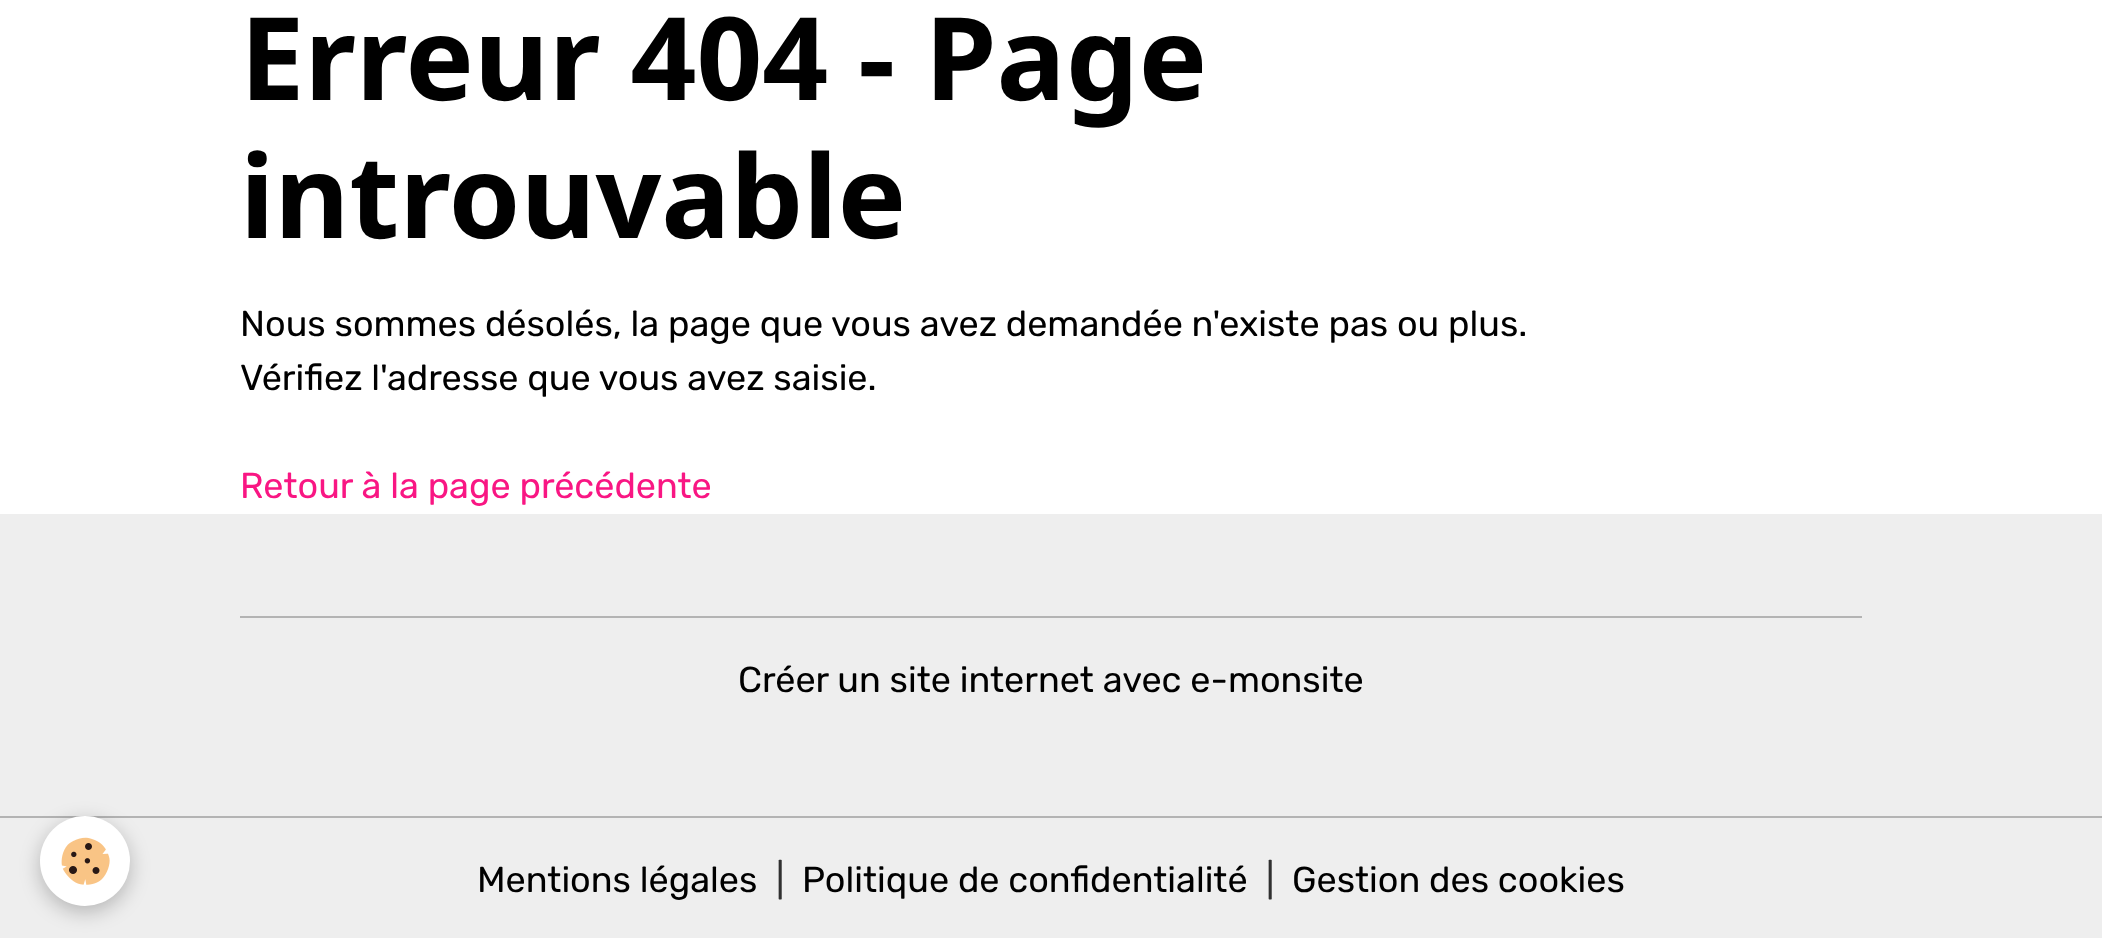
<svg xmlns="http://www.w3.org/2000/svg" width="2102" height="943">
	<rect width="100%" height="100%" fill="#FFFFFF" />
	<g font-family="Noto Sans" font-size="115.25" font-weight="700" fill="#000000">
		<text x="240" y="100">Erreur 404 - Page</text>
		<text x="240" y="238">introuvable</text>
	</g>
	<g font-family="Rubik" font-size="36" fill="#000000">
		<text x="240" y="336">Nous sommes désolés, la page que vous avez demandée n'existe pas ou plus.</text>
		<text x="240" y="390">Vérifiez l'adresse que vous avez saisie.</text>
	</g>
	<text x="240" y="498" font-family="Rubik" font-size="36" fill="#F91683">Retour à la page précédente</text>
	<rect x="0" y="514" width="2102" height="424" fill="#EEEEEE" />
	<rect x="0" y="816" width="2102" height="2" fill="#B3B3B3" />
	<rect x="40" y="822" width="90" height="90" rx="45" fill="#000000" fill-opacity="0.24" filter="blur(10px)" />
	<circle cx="85" cy="861" r="45" fill="#FFFFFF" />
	<image x="61" y="837" width="49" height="48" href="assets/img1.png" />
	<rect x="240" y="616" width="1622" height="2" fill="#B3B3B3" />
	<g font-family="Rubik" font-size="36" fill="#000000">
		<text x="738" y="692">Créer un site internet avec e-monsite</text>
		<text x="477" y="892">Mentions légales</text>
	</g>
	<text x="776" y="892" font-family="Rubik" font-size="36" fill="#303030">|</text>
	<text x="802" y="892" font-family="Rubik" font-size="36" fill="#000000">Politique de confidentialité</text>
	<text x="1266" y="892" font-family="Rubik" font-size="36" fill="#303030">|</text>
	<text x="1292" y="892" font-family="Rubik" font-size="36" fill="#000000">Gestion des cookies</text>
</svg>
